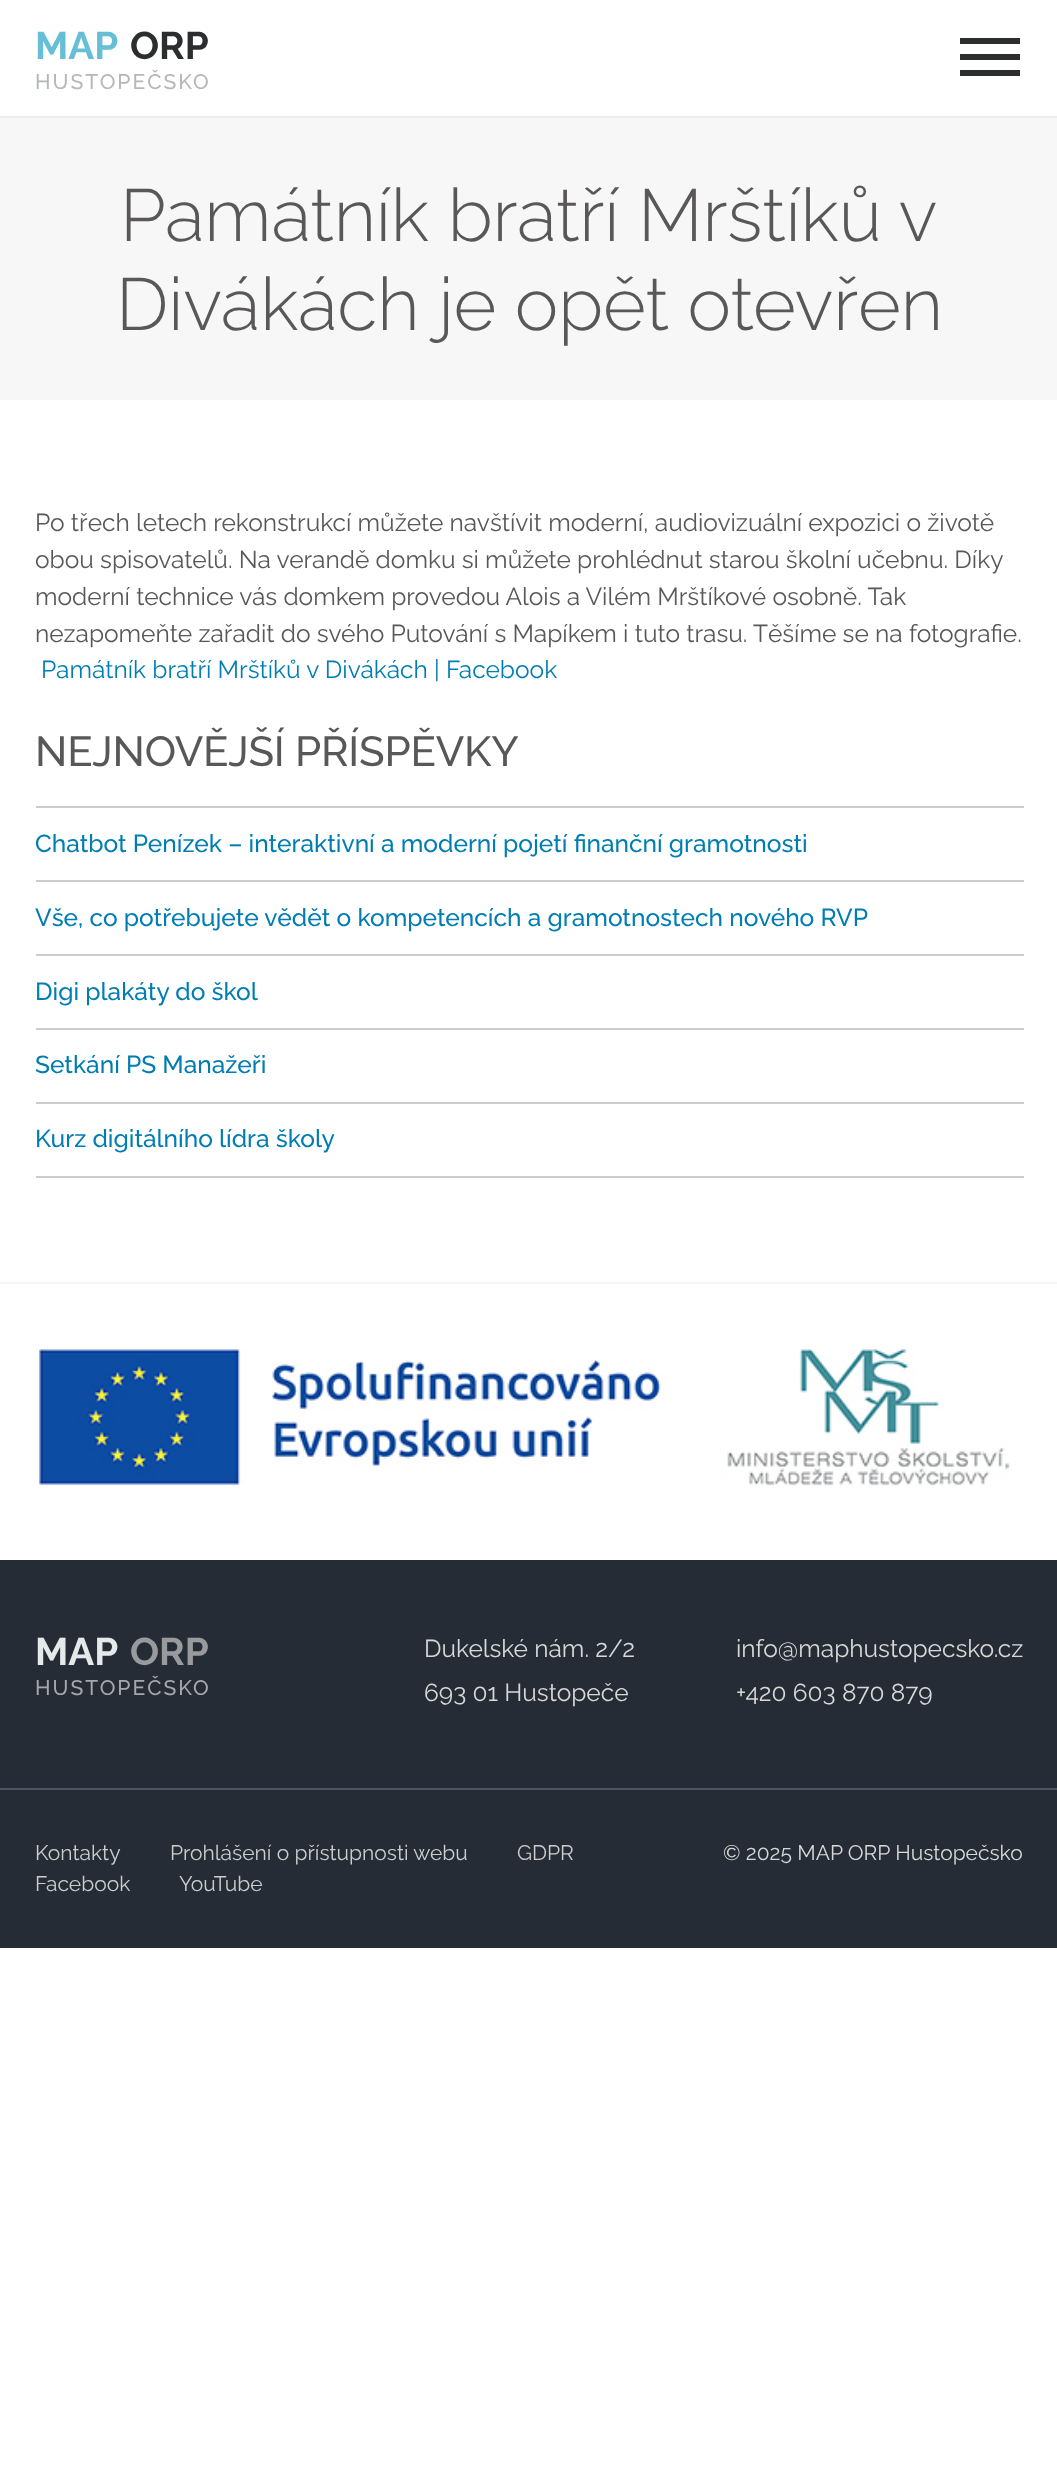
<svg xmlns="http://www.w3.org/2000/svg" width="1057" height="2465">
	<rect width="100%" height="100%" fill="#FFFFFF" />
	<rect x="0" y="116" width="1057" height="2" fill="#EEEEEE" />
	<text x="35" y="59" font-family="Raleway" font-size="38.5" font-weight="700" fill="#67BFD7">MAP</text>
	<text x="130" y="59" font-family="Raleway" font-size="38.5" font-weight="700" fill="#2C2D2F">ORP</text>
	<text x="35" y="89" font-family="Raleway" font-size="21" font-weight="500" letter-spacing="2" fill="#B5B7BB">HUSTOPEČSKO</text>
	<rect x="960" y="54" width="60" height="6" fill="#2C2D2F" />
	<rect x="960" y="38" width="60" height="6" fill="#2C2D2F" />
	<rect x="960" y="70" width="60" height="6" fill="#2C2D2F" />
	<rect x="0" y="118" width="1057" height="282" fill="#F7F7F7" />
	<g font-family="Raleway" font-size="73.5" font-weight="300" letter-spacing="-0.2" fill="#595757">
		<text x="120" y="241">Památník bratří Mrštíků v</text>
		<text x="116" y="330">Divákách je opět otevřen</text>
	</g>
	<g font-family="Raleway" font-size="24.5" fill="#595757">
		<text x="35" y="531">Po třech letech rekonstrukcí můžete navštívit moderní, audiovizuální expozici o životě</text>
		<text x="35" y="568">obou spisovatelů. Na verandě domku si můžete prohlédnut starou školní učebnu. Díky</text>
		<text x="35" y="605">moderní technice vás domkem provedou Alois a Vilém Mrštíkové osobně. Tak</text>
		<text x="35" y="642">nezapomeňte zařadit do svého Putování s Mapíkem i tuto trasu. Těšíme se na fotografie.</text>
	</g>
	<text x="41" y="678" font-family="Raleway" font-size="24.5" fill="#007DB3">Památník bratří Mrštíků v Divákách | Facebook</text>
	<text x="35" y="766" font-family="Raleway" font-size="42" font-weight="500" letter-spacing="-0.2" fill="#595757">NEJNOVĚJŠÍ PŘÍSPĚVKY</text>
	<rect x="36" y="806" width="988" height="2" fill="#CCCCCC" />
	<rect x="36" y="880" width="988" height="2" fill="#CCCCCC" />
	<text x="35" y="852" font-family="Raleway" font-size="24.5" font-weight="500" fill="#007DB3">Chatbot Penízek – interaktivní a moderní pojetí finanční gramotnosti</text>
	<rect x="36" y="954" width="988" height="2" fill="#CCCCCC" />
	<text x="35" y="926" font-family="Raleway" font-size="24.5" font-weight="500" fill="#007DB3">Vše, co potřebujete vědět o kompetencích a gramotnostech nového RVP</text>
	<rect x="36" y="1028" width="988" height="2" fill="#CCCCCC" />
	<text x="35" y="1000" font-family="Raleway" font-size="24.5" font-weight="500" fill="#007DB3">Digi plakáty do škol</text>
	<rect x="36" y="1102" width="988" height="2" fill="#CCCCCC" />
	<text x="35" y="1073" font-family="Raleway" font-size="24.5" font-weight="500" fill="#007DB3">Setkání PS Manažeři</text>
	<rect x="36" y="1176" width="988" height="2" fill="#CCCCCC" />
	<text x="35" y="1147" font-family="Raleway" font-size="24.5" font-weight="500" fill="#007DB3">Kurz digitálního lídra školy</text>
	<rect x="0" y="1282" width="1057" height="2" fill="#F5F5F5" />
	<image x="39" y="1349" width="971" height="137" href="assets/img1.png" />
	<rect x="0" y="1560" width="1057" height="388" fill="#262C35" />
	<text x="35" y="1665" font-family="Raleway" font-size="38.5" font-weight="700" fill="#E4E9EA">MAP</text>
	<text x="130" y="1665" font-family="Raleway" font-size="38.5" font-weight="700" fill="#989A9D">ORP</text>
	<text x="35" y="1695" font-family="Raleway" font-size="21" font-weight="500" letter-spacing="2" fill="#A5A8AF">HUSTOPEČSKO</text>
	<g font-family="Raleway" font-size="24.5" fill="#D9D8D8">
		<text x="424" y="1657">Dukelské nám. 2/2</text>
		<text x="736" y="1657">info@maphustopecsko.cz</text>
		<text x="424" y="1701">693 01 Hustopeče</text>
		<text x="736" y="1701">+420 603 870 879</text>
	</g>
	<rect x="0" y="1788" width="1057" height="2" fill="#4B5563" />
	<g font-family="Raleway" font-size="21" fill="#CCCCCC">
		<text x="35" y="1860">Kontakty</text>
		<text x="170" y="1860">Prohlášení o přístupnosti webu</text>
		<text x="517" y="1860">GDPR</text>
		<text x="35" y="1891">Facebook</text>
		<text x="179" y="1891">YouTube</text>
	</g>
	<text x="723" y="1860" font-family="Raleway" font-size="21" fill="#D9D8D8">© 2025 MAP ORP Hustopečsko</text>
</svg>
